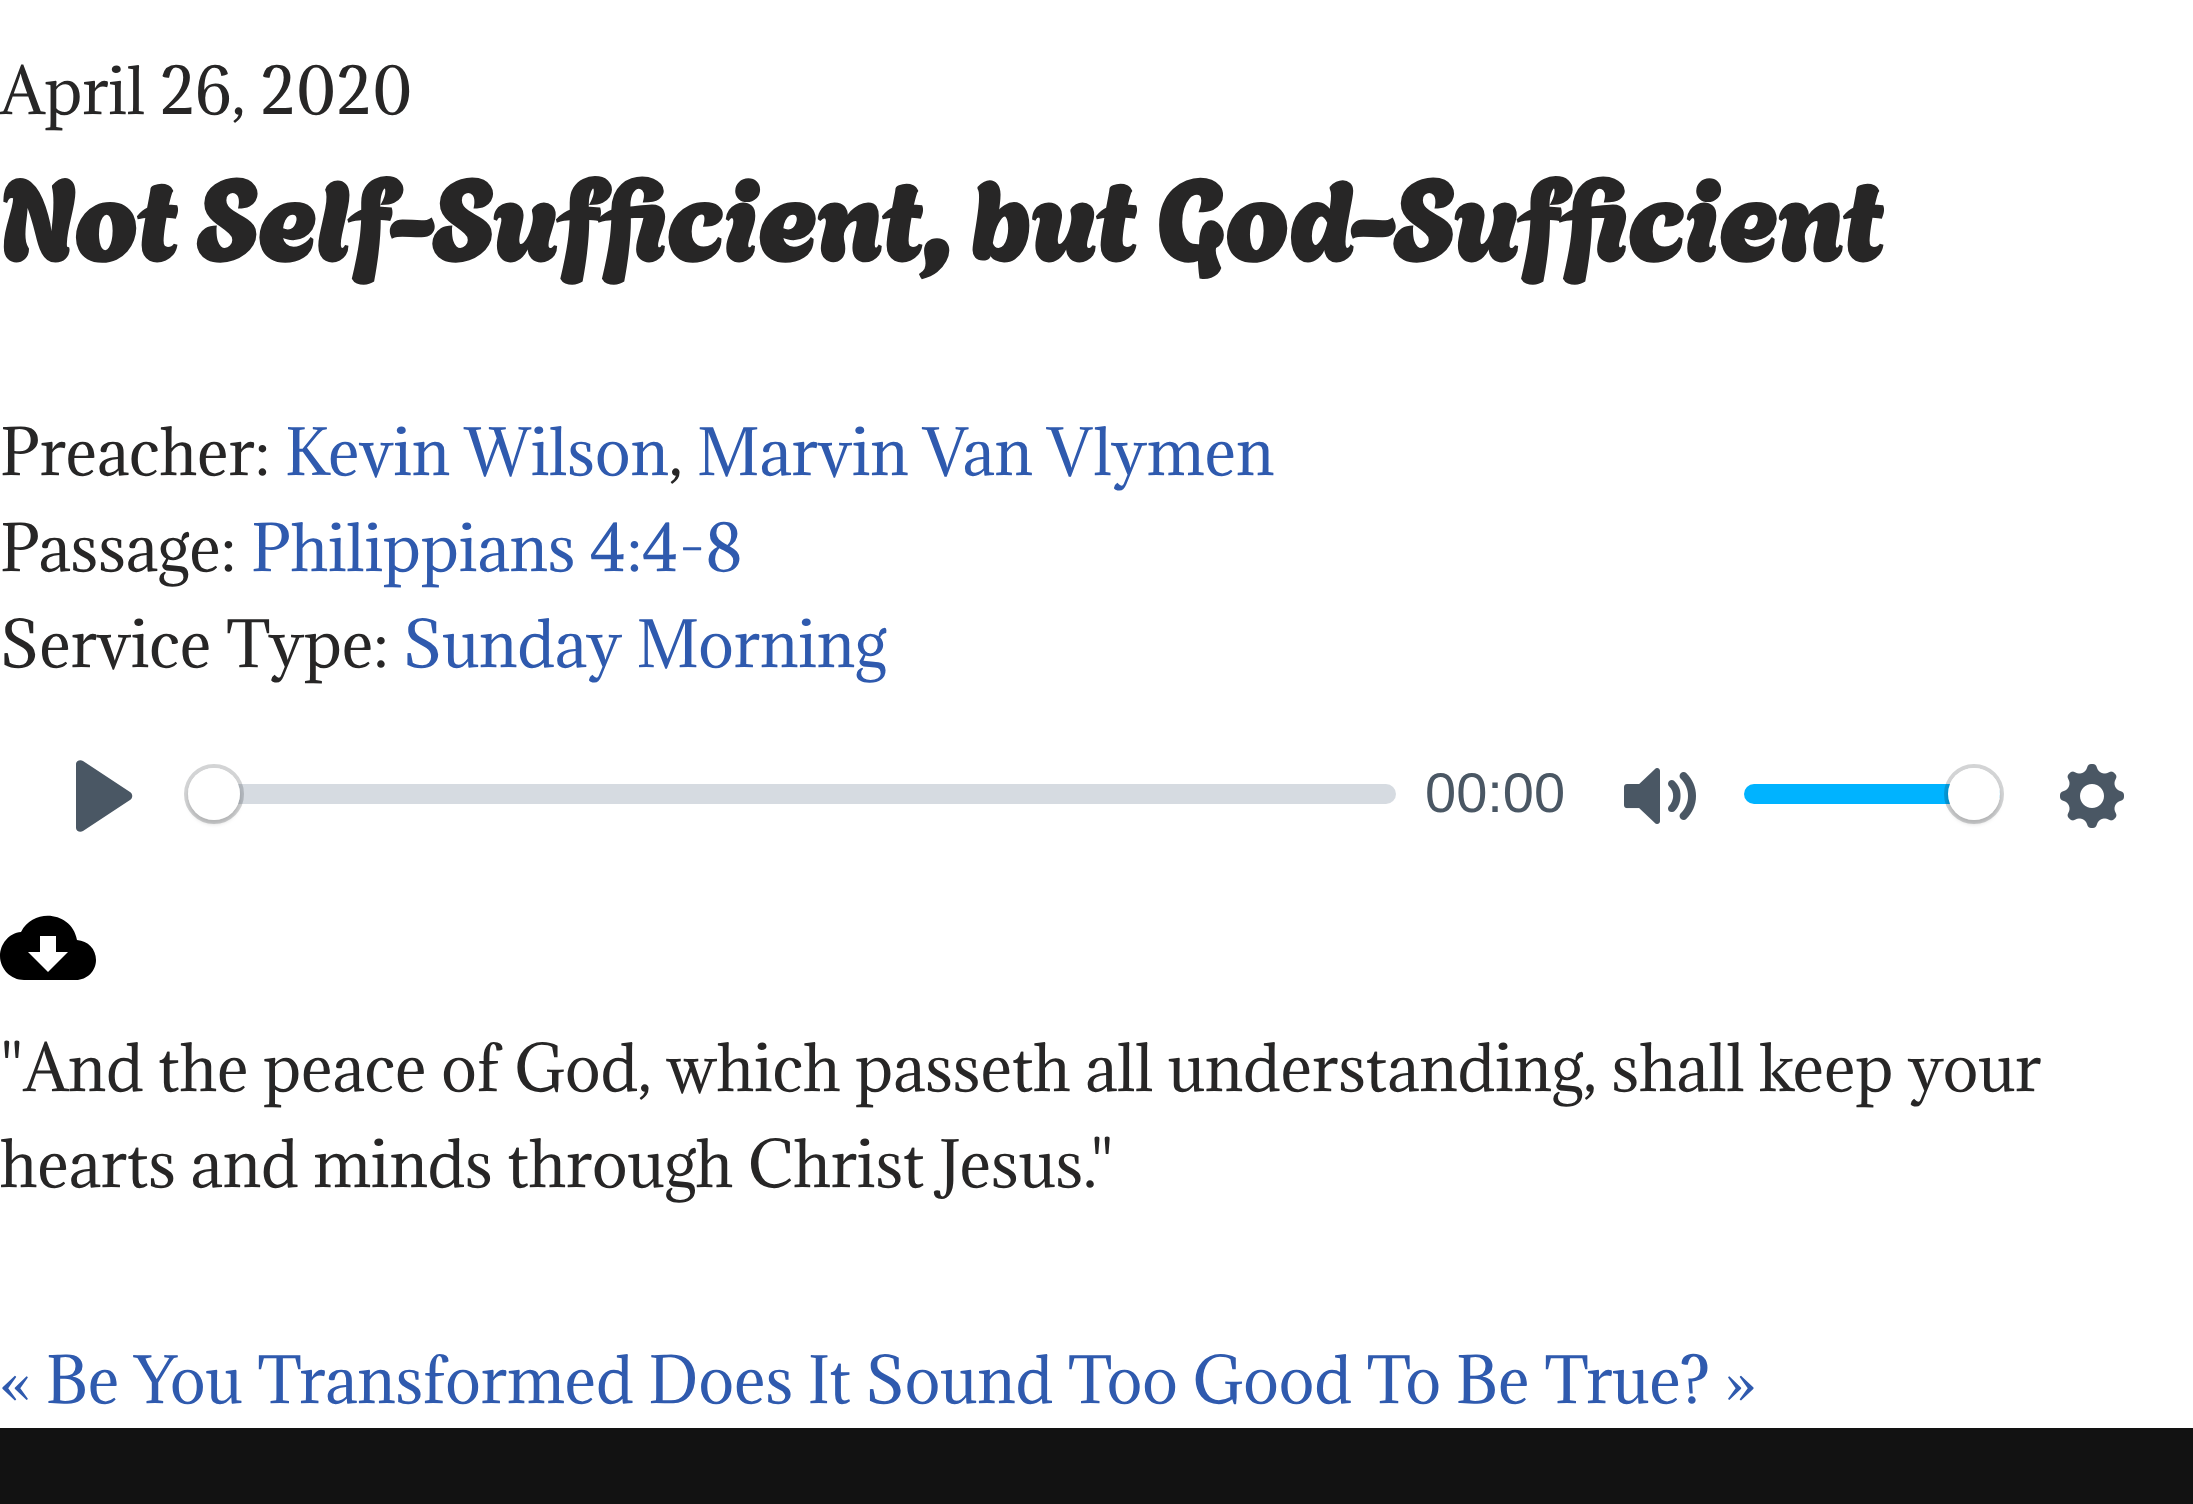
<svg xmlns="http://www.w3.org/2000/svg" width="2193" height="1504">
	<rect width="100%" height="100%" fill="#FFFFFF" />
	<text x="0" y="114" font-family="Adamina" font-size="60" fill="#272626">April 26, 2020</text>
	<text x="0" y="262" font-family="Agbalumo" font-size="112" font-weight="700" fill="#272626">Not Self-Sufficient, but God-Sufficient</text>
	<text x="0" y="475" font-family="Adamina" font-size="60" fill="#272626">Preacher:</text>
	<text x="285" y="475" font-family="Adamina" font-size="60" fill="#2F5AAE">Kevin Wilson</text>
	<text x="669" y="475" font-family="Adamina" font-size="60" fill="#272626">,</text>
	<text x="697" y="475" font-family="Adamina" font-size="60" fill="#2F5AAE">Marvin Van Vlymen</text>
	<text x="0" y="571" font-family="Adamina" font-size="60" fill="#272626">Passage:</text>
	<text x="251" y="571" font-family="Adamina" font-size="60" fill="#2F5AAE">Philippians 4:4-8</text>
	<text x="0" y="667" font-family="Adamina" font-size="60" fill="#272626">Service Type:</text>
	<text x="403" y="667" font-family="Adamina" font-size="60" fill="#2F5AAE">Sunday Morning</text>
	<path d="M130 792L83 761C80 759 76 761 76 764V828C76 831 80 833 83 831L130 800C133 798 133 794 130 792Z" fill="#4A5764" />
	<rect x="188" y="784" width="1208" height="20" rx="10" fill="#C1C9D1" fill-opacity="0.66" />
	<circle cx="214" cy="794" r="28" fill="none" stroke="#23292F" stroke-opacity="0.2" stroke-width="4" />
	<rect x="188" y="772" width="52" height="52" rx="26" fill="#000000" fill-opacity="0.15" filter="blur(2px)" />
	<circle cx="214" cy="794" r="26" fill="#FFFFFF" />
	<text x="1425" y="812" font-family="Liberation Sans" font-size="56" fill="#4A5764">00:00</text>
	<image x="1624" y="768" width="72" height="56" href="assets/img1.png" />
	<rect x="1744" y="784" width="256" height="20" rx="10" fill="#00B3FF" />
	<circle cx="1974" cy="794" r="28" fill="none" stroke="#23292F" stroke-opacity="0.2" stroke-width="4" />
	<rect x="1948" y="772" width="52" height="52" rx="26" fill="#000000" fill-opacity="0.15" filter="blur(2px)" />
	<circle cx="1974" cy="794" r="26" fill="#FFFFFF" />
	<image x="2060" y="764" width="64" height="64" href="assets/img2.png" />
	<path d="M77 940C72 912 34 907 21 932C9 933 0 944 0 956C0 969 11 980 24 980H76C87 980 96 971 96 960C96 949 88 941 77 940ZM68 952L48 972L28 952H40V936H56V952Z" fill="#000000" />
	<g font-family="Adamina" font-size="60" fill="#272626">
		<text x="0" y="1091">"And the peace of God, which passeth all understanding, shall keep your</text>
		<text x="0" y="1187">hearts and minds through Christ Jesus."</text>
	</g>
	<text x="0" y="1403" font-family="Adamina" font-size="60" fill="#2F5AAE">« Be You Transformed Does It Sound Too Good To Be True? »</text>
	<rect x="0" y="1428" width="2193" height="76" fill="#121212" />
</svg>
